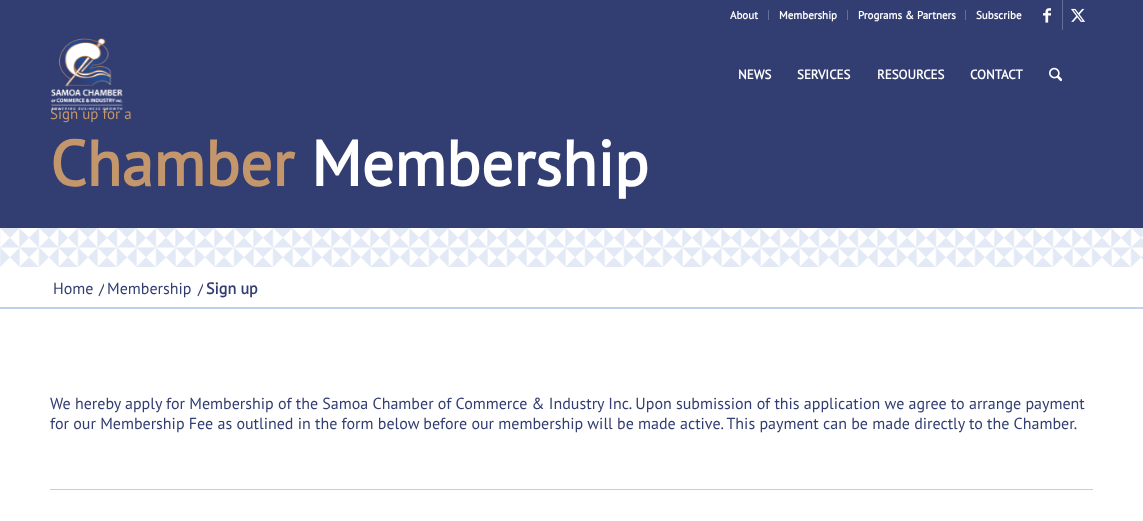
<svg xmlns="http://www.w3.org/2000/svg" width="1143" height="521">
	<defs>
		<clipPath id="clip1"><rect x="96" y="278" width="8" height="20" /></clipPath>
		<clipPath id="clip2"><rect x="195" y="278" width="8" height="20" /></clipPath>
	</defs>
	<rect width="100%" height="100%" fill="#FFFFFF" />
	<rect x="0" y="0" width="1143" height="228" fill="#323D71" />
	<rect x="768" y="10" width="1" height="10" fill="#656E95" />
	<text x="730" y="19" font-family="PT Sans" font-size="11" font-weight="700" fill="#FFFFFF">About</text>
	<rect x="847" y="10" width="1" height="10" fill="#656E95" />
	<text x="779" y="19" font-family="PT Sans" font-size="11" font-weight="700" fill="#FFFFFF">Membership</text>
	<rect x="965" y="10" width="1" height="10" fill="#656E95" />
	<g font-family="PT Sans" font-size="11" font-weight="700" fill="#FFFFFF">
		<text x="858" y="19">Programs &amp; Partners</text>
		<text x="976" y="19">Subscribe</text>
	</g>
	<rect x="1062" y="0" width="1" height="30" fill="#656E95" />
	<image x="1043" y="8" width="8" height="15" href="assets/img1.png" />
	<image x="1071" y="8" width="15" height="14" href="assets/img2.png" />
	<text x="50" y="119" font-family="PT Sans" font-size="15" fill="#C4966B">Sign up for a</text>
	<image x="50" y="38" width="73" height="73" href="assets/img3.png" />
	<g font-family="PT Sans" font-size="13" font-weight="700" fill="#FFFFFF">
		<text x="738" y="79">NEWS</text>
		<text x="797" y="79">SERVICES</text>
		<text x="877" y="79">RESOURCES</text>
		<text x="970" y="79">CONTACT</text>
	</g>
	<image x="1049" y="67" width="13" height="15" href="assets/img4.png" />
	<text x="50" y="186" font-family="PT Sans" font-size="64" font-weight="700" fill="#C4966B">Chamber</text>
	<text x="311" y="186" font-family="PT Sans" font-size="64" font-weight="700" fill="#FFFFFF">Membership</text>
	<image x="0" y="228" width="1143" height="39" href="assets/img5.png" />
	<rect x="0" y="307" width="1143" height="2" fill="#BFD0EC" />
	<text x="53" y="294" font-family="PT Sans" font-size="16" fill="#323D71">Home</text>
	<g clip-path="url(#clip1)">
		<text x="99" y="294" font-family="PT Sans" font-size="16" fill="#323D71">/</text>
	</g>
	<text x="107" y="294" font-family="PT Sans" font-size="16" fill="#323D71">Membership</text>
	<g clip-path="url(#clip2)">
		<text x="198" y="294" font-family="PT Sans" font-size="16" fill="#323D71">/</text>
	</g>
	<text x="206" y="294" font-family="PT Sans" font-size="16" font-weight="700" fill="#323D71">Sign up</text>
	<g font-family="PT Sans" font-size="16" fill="#323D71">
		<text x="50" y="409">We hereby apply for Membership of the Samoa Chamber of Commerce &amp; Industry Inc. Upon submission of this application we agree to arrange payment</text>
		<text x="50" y="429">for our Membership Fee as outlined in the form below before our membership will be made active. This payment can be made directly to the Chamber.</text>
	</g>
	<rect x="50" y="489" width="1043" height="1" fill="#BFD0EC" />
</svg>
